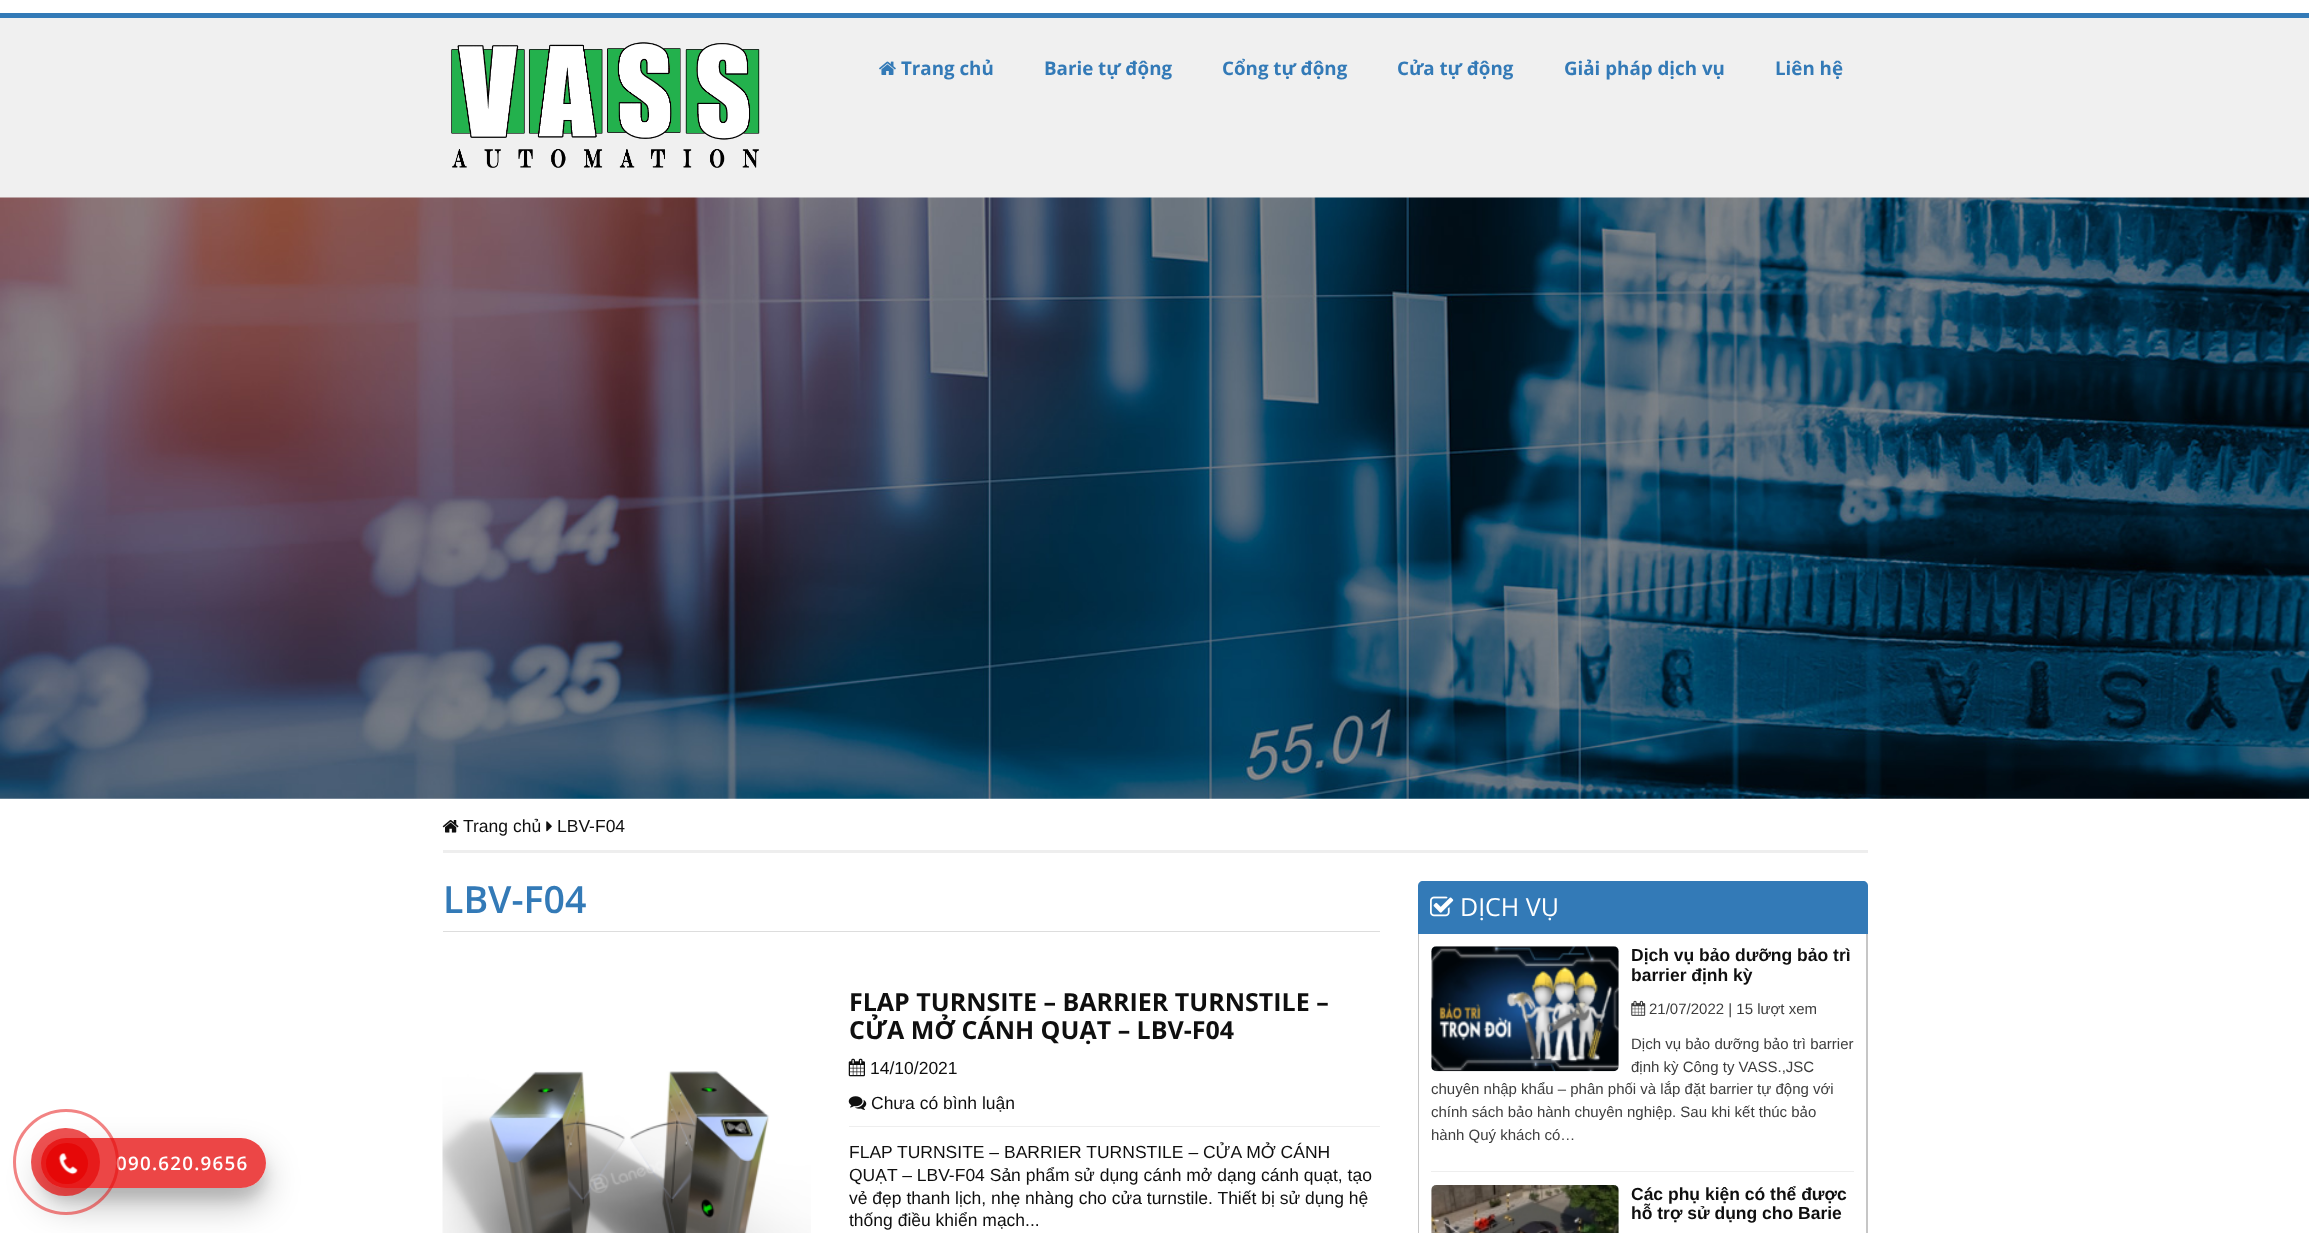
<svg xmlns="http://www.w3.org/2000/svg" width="2309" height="1233">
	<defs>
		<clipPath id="clip1"><path d="M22 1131H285V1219H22ZM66 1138H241C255 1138 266 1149 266 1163C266 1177 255 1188 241 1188H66C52 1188 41 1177 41 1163C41 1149 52 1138 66 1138Z" clip-rule="evenodd" /></clipPath>
		<clipPath id="clip2"><path d="M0 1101H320V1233H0ZM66 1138H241C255 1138 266 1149 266 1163C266 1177 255 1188 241 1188H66C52 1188 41 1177 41 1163C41 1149 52 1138 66 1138Z" clip-rule="evenodd" /></clipPath>
	</defs>
	<rect width="100%" height="100%" fill="#FFFFFF" />
	<rect x="0" y="18" width="2309" height="180" fill="#F0F0F0" />
	<rect x="0" y="13" width="2309" height="5" fill="#337AB7" />
	<image x="451" y="42" width="309" height="126" href="assets/img1.png" />
	<image x="879" y="61" width="17" height="14" href="assets/img2.png" />
	<g font-family="Open Sans" font-size="18.75" font-weight="700" fill="#337AB7">
		<text x="901" y="75">Trang chủ</text>
		<text x="1044" y="75">Barie tự động</text>
		<text x="1222" y="75">Cổng tự động</text>
		<text x="1397" y="75">Cửa tự động</text>
		<text x="1564" y="75">Giải pháp dịch vụ</text>
		<text x="1775" y="75">Liên hệ</text>
	</g>
	<g clip-path="url(#clip1)">
		<rect x="41" y="1150" width="225" height="50" rx="25" fill="#000000" fill-opacity="0.1" filter="blur(6px)" />
	</g>
	<g clip-path="url(#clip2)">
		<rect x="41" y="1155" width="225" height="50" rx="25" fill="#000000" fill-opacity="0.25" filter="blur(17.5px)" />
	</g>
	<rect x="41" y="1138" width="225" height="50" rx="25" fill="#E60808" fill-opacity="0.75" />
	<text x="116" y="1170" font-family="Open Sans" font-size="18.75" font-weight="600" letter-spacing="1.25" fill="#FFFFFF">090.620.9656</text>
	<circle cx="66" cy="1162" r="51.5" fill="none" stroke="#E60808" stroke-opacity="0.5" stroke-width="3" />
	<rect x="31" y="1128" width="69" height="68" rx="34" fill="#E60808" fill-opacity="0.7" />
	<rect x="46" y="1143" width="42" height="41" rx="20.5" fill="#E60808" />
	<image x="58" y="1153" width="20" height="22" href="assets/img3.png" />
	<image x="0" y="197" width="2309" height="602" href="assets/img4.png" />
	<rect x="443" y="850" width="1425" height="3" fill="#EEEEEE" />
	<image x="442" y="820" width="17" height="13" href="assets/img5.png" />
	<text x="463" y="832" font-family="Liberation Sans" font-size="17.5" fill="#0F0F0F">Trang chủ</text>
	<image x="546" y="821" width="6" height="11" href="assets/img6.png" />
	<text x="557" y="832" font-family="Liberation Sans" font-size="17.5" fill="#0F0F0F">LBV-F04</text>
	<rect x="443" y="931" width="937" height="1" fill="#DDDDDD" />
	<text x="443" y="913" font-family="Open Sans" font-size="37.5" font-weight="600" fill="#337AB7">LBV-F04</text>
	<image x="442" y="1071" width="369" height="162" href="assets/img7.png" />
	<g font-family="Open Sans" font-size="25" font-weight="700" fill="#0F0F0F">
		<text x="849" y="1011">FLAP TURNSITE – BARRIER TURNSTILE –</text>
		<text x="849" y="1039">CỬA MỞ CÁNH QUẠT – LBV-F04</text>
	</g>
	<rect x="849" y="1126" width="531" height="1" fill="#EEEEEE" />
	<image x="848" y="1058" width="17" height="19" href="assets/img8.png" />
	<text x="870" y="1074" font-family="Liberation Sans" font-size="17.5" fill="#0F0F0F">14/10/2021</text>
	<image x="848" y="1096" width="19" height="14" href="assets/img9.png" />
	<g font-family="Liberation Sans" font-size="17.5" fill="#0F0F0F">
		<text x="871" y="1109">Chưa có bình luận</text>
		<text x="849" y="1158">FLAP TURNSITE – BARRIER TURNSTILE – CỬA MỞ CÁNH</text>
		<text x="849" y="1181">QUẠT – LBV-F04 Sản phẩm sử dụng cánh mở dạng cánh quạt, tạo</text>
		<text x="849" y="1204">vẻ đẹp thanh lịch, nhẹ nhàng cho cửa turnstile. Thiết bị sử dụng hệ</text>
		<text x="849" y="1226">thống điều khiển mạch...</text>
	</g>
	<path d="M1423 881H1863C1866 881 1868 883 1868 886V934H1418V886C1418 883 1420 881 1423 881Z" fill="#337AB7" />
	<image x="1430" y="896" width="24" height="21" href="assets/img10.png" />
	<text x="1460" y="916" font-family="Open Sans" font-size="25" fill="#FFFFFF">DỊCH VỤ</text>
	<path d="M1418 934H1868V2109C1868 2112 1865 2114 1862 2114H1422C1420 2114 1418 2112 1418 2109ZM1419 934H1866V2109C1866 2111 1865 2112 1862 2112H1422C1420 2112 1419 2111 1419 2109Z" fill="#C6C6C6" fill-rule="evenodd" />
	<rect x="1431" y="1171" width="423" height="1" fill="#EEEEEE" />
	<image x="1431" y="946" width="188" height="126" href="assets/img11.png" />
	<g font-family="Liberation Sans" font-size="17.5" font-weight="700" fill="#0F0F0F">
		<text x="1631" y="961">Dịch vụ bảo dưỡng bảo trì</text>
		<text x="1631" y="981">barrier định kỳ</text>
	</g>
	<image x="1631" y="1000" width="15" height="16" href="assets/img12.png" />
	<g font-family="Liberation Sans" font-size="15" fill="#3D3D3D">
		<text x="1649" y="1014">21/07/2022 | 15 lượt xem</text>
		<text x="1631" y="1049">Dịch vụ bảo dưỡng bảo trì barrier</text>
		<text x="1631" y="1072">định kỳ Công ty VASS.,JSC</text>
		<text x="1431" y="1094">chuyên nhập khẩu – phân phối và lắp đặt barrier tự động với</text>
		<text x="1431" y="1117">chính sách bảo hành chuyên nghiệp. Sau khi kết thúc bảo</text>
		<text x="1431" y="1140">hành Quý khách có…</text>
	</g>
	<image x="1431" y="1185" width="188" height="48" href="assets/img13.png" />
	<g font-family="Liberation Sans" font-size="17.5" font-weight="700" fill="#0F0F0F">
		<text x="1631" y="1200">Các phụ kiện có thể được</text>
		<text x="1631" y="1219">hỗ trợ sử dụng cho Barie</text>
	</g>
</svg>
